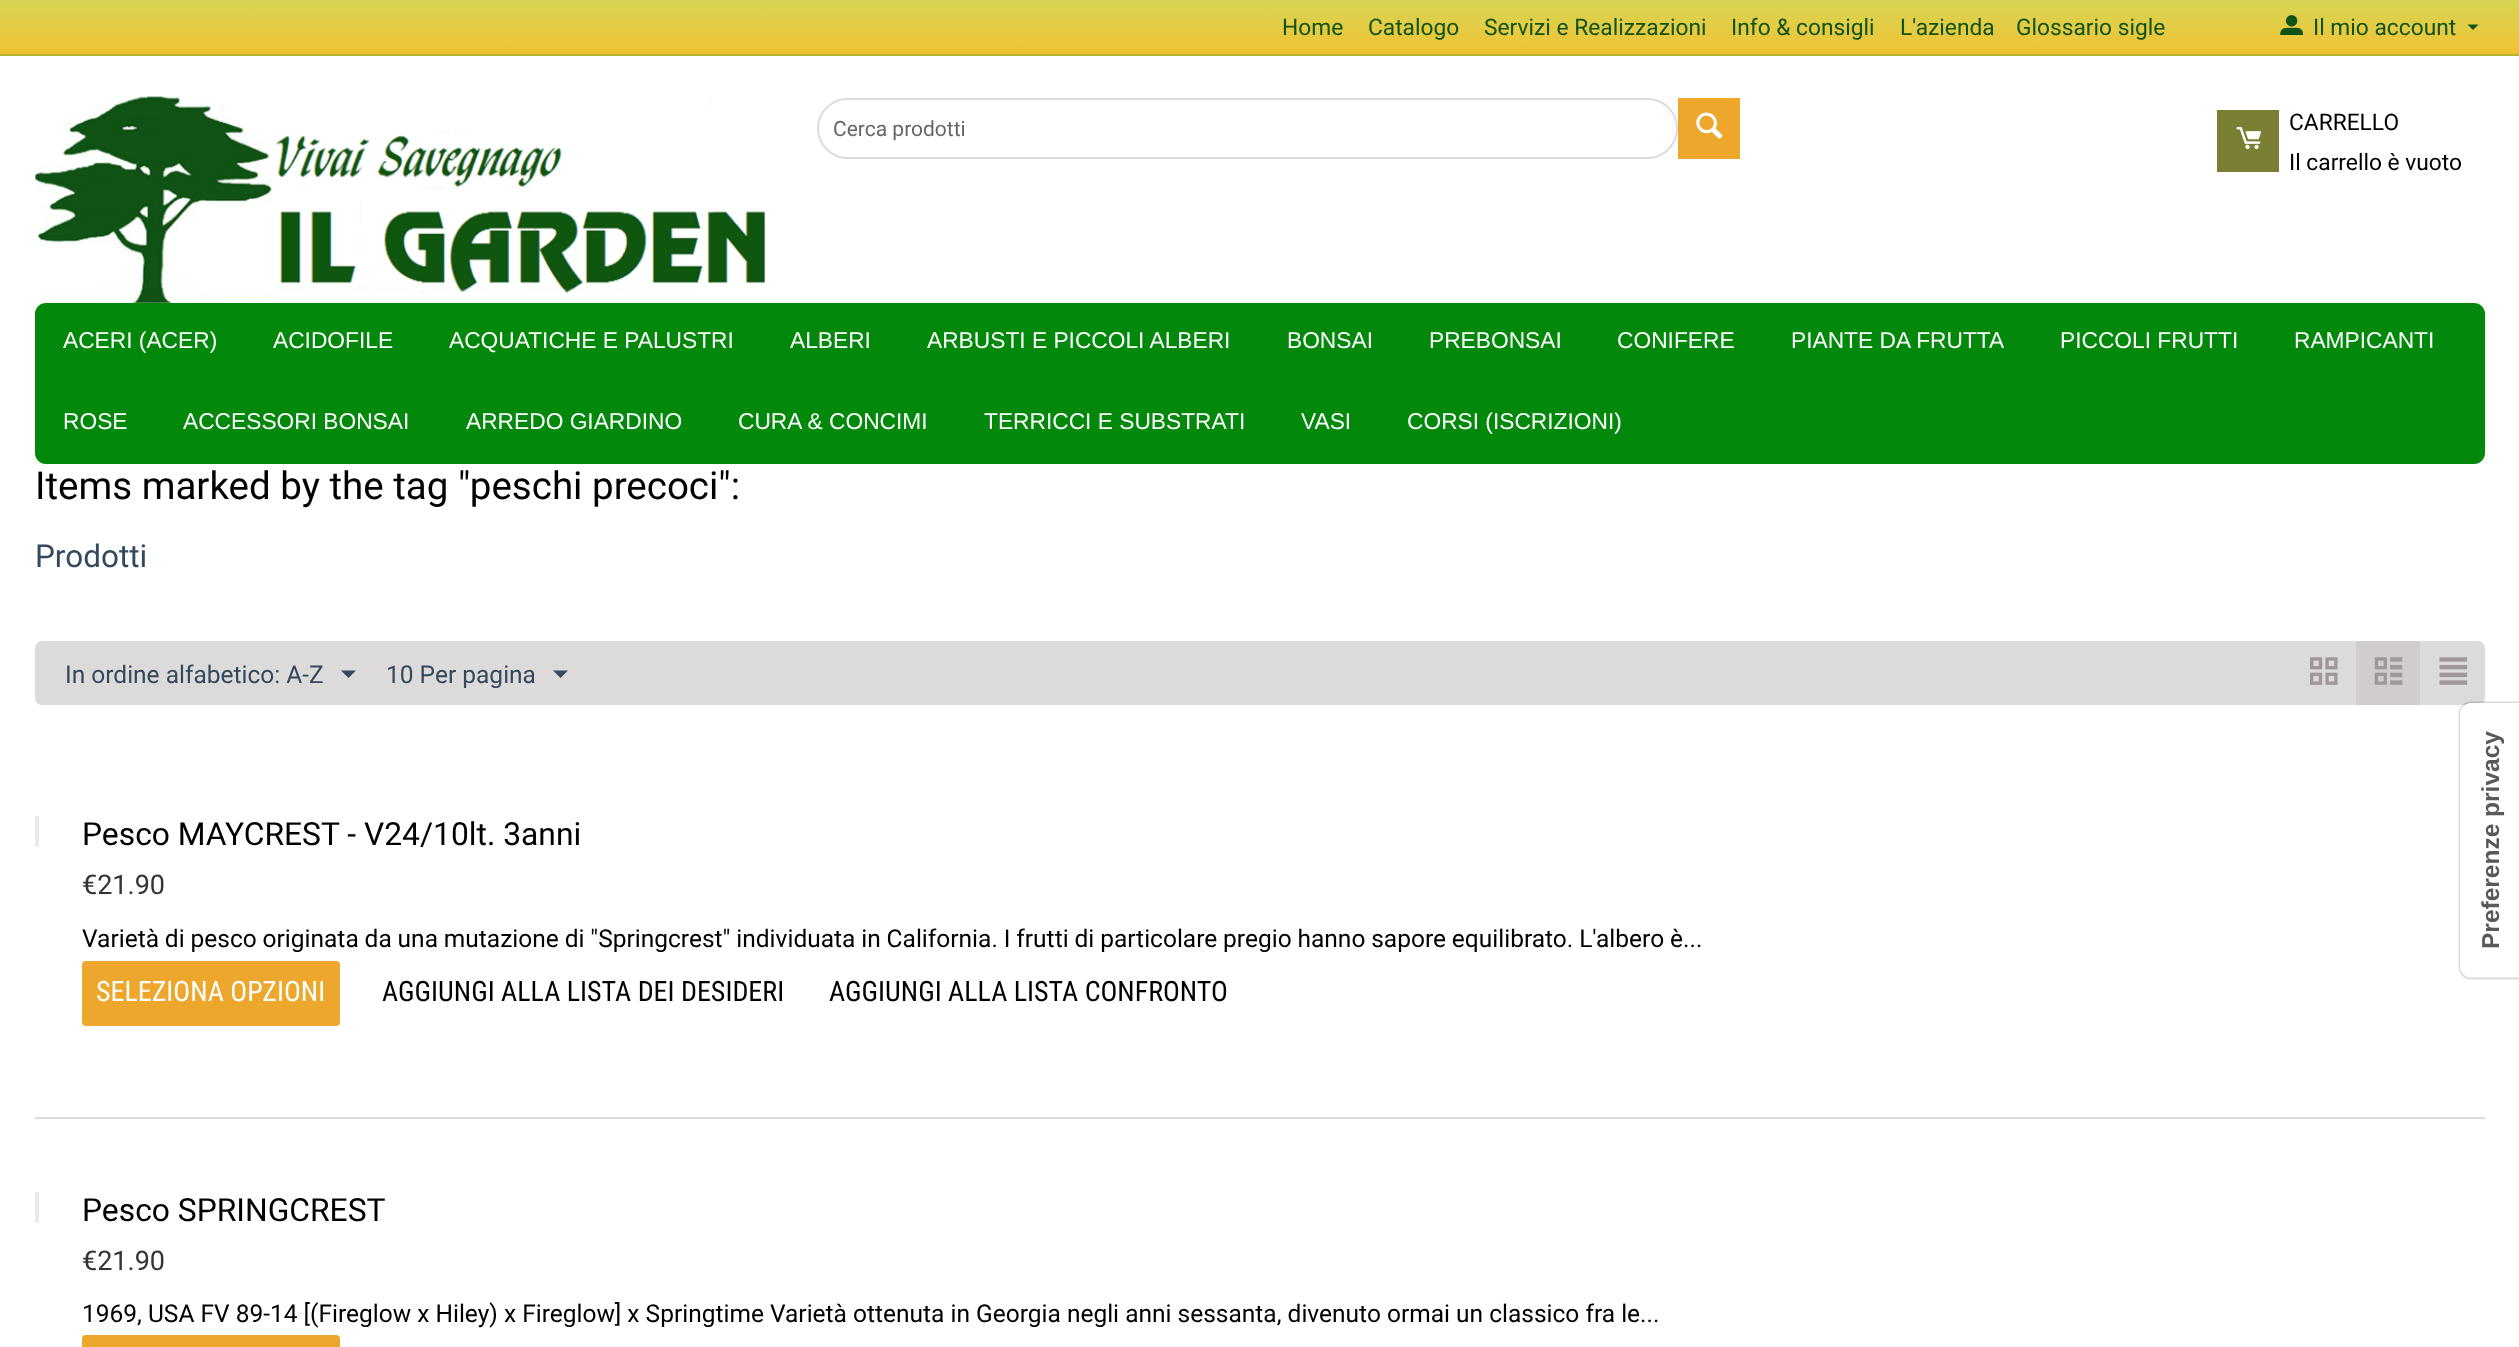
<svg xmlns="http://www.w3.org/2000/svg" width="2519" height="1347">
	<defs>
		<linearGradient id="g1" gradientUnits="userSpaceOnUse" x1="1260" y1="0" x2="1260" y2="54"><stop offset="0" stop-color="#D6D556" /><stop offset="1" stop-color="#F1C232" /></linearGradient>
	</defs>
	<rect width="100%" height="100%" fill="#FFFFFF" />
	<rect x="0" y="0" width="2519" height="54" fill="url(#g1)" />
	<rect x="0" y="54" width="2519" height="2" fill="#B4B32C" />
	<g font-family="Roboto" font-size="22.75" fill="#105214">
		<text x="1282" y="35">Home</text>
		<text x="1368" y="35">Catalogo</text>
		<text x="1484" y="35">Servizi e Realizzazioni</text>
		<text x="1731" y="35">Info &amp; consigli</text>
		<text x="1900" y="35">L'azienda</text>
		<text x="2016" y="35">Glossario sigle</text>
	</g>
	<image x="2280" y="15" width="23" height="20" href="assets/img1.png" />
	<text x="2313" y="35" font-family="Roboto" font-size="22.75" fill="#105214">Il mio account</text>
	<path d="M2473 30L2467.5 24.5H2478.5Z" fill="#105214" />
	<image x="35" y="96" width="730" height="207" href="assets/img2.png" />
	<rect x="818" y="99" width="859" height="59" rx="29.5" fill="none" stroke="#DDDADA" stroke-width="2" />
	<text x="833" y="136" font-family="Roboto" font-size="21" fill="#666666">Cerca prodotti</text>
	<rect x="1678" y="98" width="62" height="61" fill="#ECA72C" />
	<image x="1696" y="112" width="27" height="27" href="assets/img3.png" />
	<rect x="2217" y="110" width="62" height="62" fill="#7A7F33" />
	<image x="2236" y="127" width="25" height="22" href="assets/img4.png" />
	<g font-family="Roboto" font-size="22.75" fill="#000000">
		<text x="2289" y="130">CARRELLO</text>
		<text x="2289" y="170">Il carrello è vuoto</text>
	</g>
	<rect x="35" y="303" width="2450" height="161" rx="11" fill="#02890B" />
	<g font-family="Liberation Sans" font-size="22.75" fill="#FFFFFF">
		<text x="63" y="348">ACERI (ACER)</text>
		<text x="273" y="348">ACIDOFILE</text>
		<text x="449" y="348">ACQUATICHE E PALUSTRI</text>
		<text x="790" y="348">ALBERI</text>
		<text x="927" y="348">ARBUSTI E PICCOLI ALBERI</text>
		<text x="1287" y="348">BONSAI</text>
		<text x="1429" y="348">PREBONSAI</text>
		<text x="1617" y="348">CONIFERE</text>
		<text x="1791" y="348">PIANTE DA FRUTTA</text>
		<text x="2060" y="348">PICCOLI FRUTTI</text>
		<text x="2294" y="348">RAMPICANTI</text>
		<text x="63" y="429">ROSE</text>
		<text x="183" y="429">ACCESSORI BONSAI</text>
		<text x="466" y="429">ARREDO GIARDINO</text>
		<text x="738" y="429">CURA &amp; CONCIMI</text>
		<text x="984" y="429">TERRICCI E SUBSTRATI</text>
		<text x="1301" y="429">VASI</text>
		<text x="1407" y="429">CORSI (ISCRIZIONI)</text>
	</g>
	<text x="35" y="499" font-family="Roboto" font-size="38.5" fill="#000000">Items marked by the tag "peschi precoci":</text>
	<text x="35" y="567" font-family="Roboto" font-size="31.5" fill="#34495E">Prodotti</text>
	<rect x="35" y="641" width="2450" height="64" rx="7" fill="#DDDADA" />
	<text x="65" y="683" font-family="Roboto" font-size="24.5" fill="#34495E">In ordine alfabetico: A-Z</text>
	<path d="M348.5 678L341 670.5H356Z" fill="#34495E" />
	<text x="386" y="683" font-family="Roboto" font-size="24.5" fill="#34495E">10 Per pagina</text>
	<path d="M560.5 678L553 670.5H568Z" fill="#34495E" />
	<image x="2310" y="657" width="28" height="28" href="assets/img5.png" />
	<rect x="2356" y="641" width="64" height="64" fill="#D1CDCD" />
	<image x="2374" y="657" width="29" height="28" href="assets/img6.png" />
	<image x="2439" y="657" width="29" height="28" href="assets/img7.png" />
	<rect x="35" y="816" width="4" height="31" fill="#EBEBEB" />
	<text x="82" y="845" font-family="Roboto" font-size="31.8" fill="#000000">Pesco MAYCREST - V24/10lt. 3anni</text>
	<text x="82" y="894" font-family="Roboto" font-size="27" fill="#343434">€21.90</text>
	<text x="82" y="947" word-spacing="-0.2" font-family="Roboto" font-size="24.5" fill="#000000">Varietà di pesco originata da una mutazione di "Springcrest" individuata in California. I frutti di particolare pregio hanno sapore equilibrato. L'albero è...</text>
	<rect x="82" y="961" width="258" height="65" rx="4" fill="#ECA72C" />
	<text x="96" y="1001" font-family="Roboto Condensed" font-size="28" fill="#FFFFFF">SELEZIONA OPZIONI</text>
	<g font-family="Roboto Condensed" font-size="28" fill="#000000">
		<text x="382" y="1001">AGGIUNGI ALLA LISTA DEI DESIDERI</text>
		<text x="829" y="1001">AGGIUNGI ALLA LISTA CONFRONTO</text>
	</g>
	<rect x="35" y="1117" width="2450" height="2" fill="#DDDADA" />
	<rect x="35" y="1192" width="4" height="31" fill="#EBEBEB" />
	<text x="82" y="1221" font-family="Roboto" font-size="31.8" fill="#000000">Pesco SPRINGCREST</text>
	<text x="82" y="1270" font-family="Roboto" font-size="27" fill="#343434">€21.90</text>
	<text x="82" y="1322" font-family="Roboto" font-size="24.5" fill="#000000">1969, USA FV 89-14 [(Fireglow x Hiley) x Fireglow] x Springtime Varietà ottenuta in Georgia negli anni sessanta, divenuto ormai un classico fra le...</text>
	<rect x="82" y="1335" width="258" height="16" rx="4" fill="#ECA72C" />
	<path d="M2459.5 967V714C2459.5 707.5 2464.5 702.5 2471 702.5H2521V978.5H2471C2464.5 978.5 2459.5 973 2459.5 967Z" fill="none" stroke="#000000" stroke-opacity="0.15" stroke-width="1.8" />
	<path d="M2460 967V714C2460 708 2465 703 2471 703H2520V977H2471C2465 977 2460 973 2460 967Z" fill="#FFFFFF" />
	<text x="2499" y="949" transform="rotate(-90 2499 949)" font-family="Liberation Sans" font-size="24.5" font-weight="700" fill="#595959">Preferenze privacy</text>
</svg>
